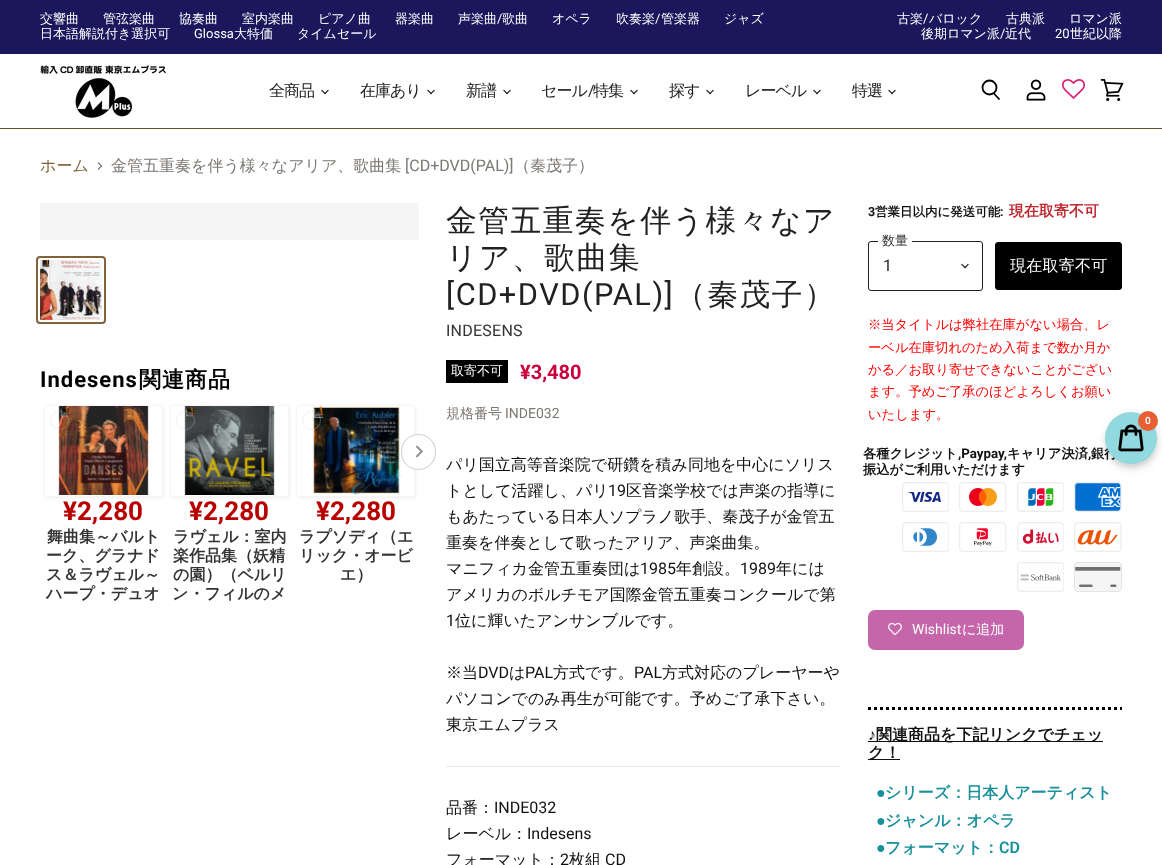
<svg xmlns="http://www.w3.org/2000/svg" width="1162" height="865">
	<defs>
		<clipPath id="clip1"><path d="M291 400H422V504H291ZM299 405H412C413.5 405 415 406.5 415 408V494C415 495.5 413.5 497 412 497H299C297.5 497 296 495.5 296 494V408C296 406.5 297.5 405 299 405Z" clip-rule="evenodd" /></clipPath>
		<clipPath id="clip2"><path d="M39 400H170V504H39ZM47 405H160C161.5 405 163 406.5 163 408V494C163 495.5 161.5 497 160 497H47C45.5 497 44 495.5 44 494V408C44 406.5 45.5 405 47 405Z" clip-rule="evenodd" /></clipPath>
		<clipPath id="clip3"><path d="M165 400H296V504H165ZM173 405H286C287.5 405 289 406.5 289 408V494C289 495.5 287.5 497 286 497H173C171.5 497 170 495.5 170 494V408C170 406.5 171.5 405 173 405Z" clip-rule="evenodd" /></clipPath>
	</defs>
	<rect width="100%" height="100%" fill="#FFFFFF" />
	<rect x="0" y="0" width="1162" height="54" fill="#1B175D" />
	<g font-family="WenQuanYi Zen Hei" font-size="13" font-weight="500" fill="#FFFFFF">
		<text x="40" y="23">交響曲</text>
		<text x="103" y="23">管弦楽曲</text>
		<text x="179" y="23">協奏曲</text>
		<text x="242" y="23">室内楽曲</text>
		<text x="318" y="23">ピアノ曲</text>
		<text x="395" y="23">器楽曲</text>
		<text x="458" y="23">声楽曲</text>
	</g>
	<text x="497" y="23" font-family="Roboto" font-size="13" fill="#FFFFFF">/</text>
	<g font-family="WenQuanYi Zen Hei" font-size="13" font-weight="500" fill="#FFFFFF">
		<text x="502" y="23">歌曲</text>
		<text x="552" y="23">オペラ</text>
		<text x="616" y="23">吹奏楽</text>
	</g>
	<text x="655" y="23" font-family="Roboto" font-size="13" fill="#FFFFFF">/</text>
	<g font-family="WenQuanYi Zen Hei" font-size="13" font-weight="500" fill="#FFFFFF">
		<text x="661" y="23">管楽器</text>
		<text x="724" y="23">ジャズ</text>
		<text x="40" y="38">日本語解説付き選択可</text>
	</g>
	<text x="194" y="38" font-family="Roboto" font-size="13" fill="#FFFFFF">Glossa</text>
	<g font-family="WenQuanYi Zen Hei" font-size="13" font-weight="500" fill="#FFFFFF">
		<text x="234" y="38">大特価</text>
		<text x="297" y="38">タイムセール</text>
		<text x="897" y="23">古楽</text>
	</g>
	<text x="923" y="23" font-family="Roboto" font-size="13" fill="#FFFFFF">/</text>
	<g font-family="WenQuanYi Zen Hei" font-size="13" font-weight="500" fill="#FFFFFF">
		<text x="929" y="23">バロック</text>
		<text x="1006" y="23">古典派</text>
		<text x="1069" y="23">ロマン派</text>
		<text x="921" y="38">後期ロマン派</text>
	</g>
	<text x="1000" y="38" font-family="Roboto" font-size="13" fill="#FFFFFF">/</text>
	<text x="1005" y="38" font-family="WenQuanYi Zen Hei" font-size="13" font-weight="500" fill="#FFFFFF">近代</text>
	<text x="1055" y="38" font-family="Roboto" font-size="13" fill="#FFFFFF">20</text>
	<text x="1070" y="38" font-family="WenQuanYi Zen Hei" font-size="13" font-weight="500" fill="#FFFFFF">世紀以降</text>
	<rect x="0" y="128" width="1162" height="1" fill="#664E2D" />
	<image x="40" y="63" width="127" height="56" href="assets/img1.png" />
	<text x="269" y="96" font-family="WenQuanYi Zen Hei" font-size="16" font-weight="500" letter-spacing="-1" fill="#212121">全商品</text>
	<image x="321" y="89" width="8" height="6" href="assets/img2.png" />
	<text x="360" y="96" font-family="WenQuanYi Zen Hei" font-size="16" font-weight="500" letter-spacing="-1" fill="#212121">在庫あり</text>
	<image x="427" y="89" width="8" height="6" href="assets/img2.png" />
	<text x="466" y="96" font-family="WenQuanYi Zen Hei" font-size="16" font-weight="500" letter-spacing="-1" fill="#212121">新譜</text>
	<image x="503" y="89" width="8" height="6" href="assets/img2.png" />
	<text x="541" y="96" font-family="WenQuanYi Zen Hei" font-size="16" font-weight="500" letter-spacing="-1" fill="#212121">セール</text>
	<text x="588" y="96" font-family="Roboto" font-size="16" letter-spacing="-1" fill="#212121">/</text>
	<text x="593" y="96" font-family="WenQuanYi Zen Hei" font-size="16" font-weight="500" letter-spacing="-1" fill="#212121">特集</text>
	<image x="630" y="89" width="8" height="6" href="assets/img2.png" />
	<text x="669" y="96" font-family="WenQuanYi Zen Hei" font-size="16" font-weight="500" letter-spacing="-1" fill="#212121">探す</text>
	<image x="706" y="89" width="8" height="6" href="assets/img2.png" />
	<text x="745" y="96" font-family="WenQuanYi Zen Hei" font-size="16" font-weight="500" letter-spacing="-1" fill="#212121">レーベル</text>
	<image x="813" y="89" width="8" height="6" href="assets/img2.png" />
	<text x="852" y="96" font-family="WenQuanYi Zen Hei" font-size="16" font-weight="500" letter-spacing="-1" fill="#212121">特選</text>
	<image x="888" y="89" width="8" height="6" href="assets/img2.png" />
	<path d="M999.5 99.5L993.5 93" fill="none" stroke="#000000" stroke-width="1.8" />
	<circle cx="989.5" cy="87.5" r="7" fill="none" stroke="#000000" stroke-width="1.8" />
	<image x="1026" y="79" width="20" height="22" href="assets/img3.png" />
	<image x="1062" y="79" width="23" height="20" href="assets/img4.png" />
	<image x="1100" y="79" width="24" height="22" href="assets/img5.png" />
	<text x="40" y="171" font-family="WenQuanYi Zen Hei" font-size="16" font-weight="500" fill="#816339">ホーム</text>
	<path d="M98 169.5L101.5 166L98 162.5" fill="none" stroke="#7C7873" stroke-width="1.2" />
	<text x="111" y="171" font-family="WenQuanYi Zen Hei" font-size="16" font-weight="500" fill="#7C7873">金管五重奏を伴う様々なアリア、歌曲集</text>
	<text x="405" y="171" font-family="Roboto" font-size="16" fill="#7C7873">[CD+DVD(PAL)]</text>
	<text x="514" y="171" font-family="WenQuanYi Zen Hei" font-size="16" font-weight="500" fill="#7C7873">（秦茂子）</text>
	<rect x="40" y="203" width="379" height="37" fill="#F5F5F5" />
	<rect x="37" y="257" width="68" height="66" rx="3" fill="none" stroke="#816339" stroke-width="2" />
	<image x="40" y="260" width="62" height="60" href="assets/img6.png" />
	<text x="40" y="387" font-family="Roboto" font-size="22" font-weight="700" letter-spacing="1" fill="#020202">Indesens</text>
	<text x="139" y="387" font-family="WenQuanYi Zen Hei" font-size="22" font-weight="700" letter-spacing="1" fill="#020202">関連商品</text>
	<g clip-path="url(#clip1)">
		<rect x="297" y="406" width="119" height="92" rx="3" fill="#929292" fill-opacity="0.15" filter="blur(1.5px)" />
	</g>
	<rect x="296.5" y="405.5" width="118" height="91" rx="2.5" fill="none" stroke="#E7DEDE" stroke-opacity="0.3" />
	<image x="312" y="406" width="90" height="89" href="assets/img10.png" />
	<rect x="401.5" y="434.5" width="34" height="35" rx="17" fill="#FFFFFF" stroke="#CCCCCC" />
	<image x="415" y="445" width="9" height="13" href="assets/img7.png" />
	<g clip-path="url(#clip2)">
		<rect x="45" y="406" width="119" height="92" rx="3" fill="#929292" fill-opacity="0.15" filter="blur(1.5px)" />
	</g>
	<rect x="44.5" y="405.5" width="118" height="91" rx="2.5" fill="none" stroke="#E7DEDE" stroke-opacity="0.3" />
	<image x="58" y="406" width="91" height="89" href="assets/img8.png" />
	<circle cx="59.5" cy="420.5" r="9" fill="none" stroke="#C3CFD8" stroke-opacity="0.3" />
	<text x="63" y="520" font-family="Roboto" font-size="26" font-weight="700" fill="#B90000">¥2,280</text>
	<g font-family="WenQuanYi Zen Hei" font-size="16" font-weight="700" fill="#333333">
		<text x="47" y="542">舞曲集～バルト</text>
		<text x="46" y="561">ーク、グラナド</text>
		<text x="46" y="580">ス＆ラヴェル～</text>
		<text x="46" y="599">ハープ・デュオ</text>
	</g>
	<g clip-path="url(#clip3)">
		<rect x="171" y="406" width="119" height="92" rx="3" fill="#929292" fill-opacity="0.15" filter="blur(1.5px)" />
	</g>
	<rect x="170.5" y="405.5" width="118" height="91" rx="2.5" fill="none" stroke="#E7DEDE" stroke-opacity="0.3" />
	<image x="184" y="406" width="91" height="89" href="assets/img9.png" />
	<circle cx="185.5" cy="420.5" r="9" fill="none" stroke="#C3CFD8" stroke-opacity="0.3" />
	<text x="189" y="520" font-family="Roboto" font-size="26" font-weight="700" fill="#B90000">¥2,280</text>
	<g font-family="WenQuanYi Zen Hei" font-size="16" font-weight="700" fill="#333333">
		<text x="173" y="542">ラヴェル：室内</text>
		<text x="173" y="561">楽作品集（妖精</text>
		<text x="173" y="580">の園）（ベルリ</text>
		<text x="172" y="599">ン・フィルのメ</text>
	</g>
	<circle cx="311.5" cy="420.5" r="9" fill="none" stroke="#C3CFD8" stroke-opacity="0.3" />
	<text x="316" y="520" font-family="Roboto" font-size="26" font-weight="700" fill="#B90000">¥2,280</text>
	<g font-family="WenQuanYi Zen Hei" font-size="16" font-weight="700" fill="#333333">
		<text x="299" y="542">ラプソディ（エ</text>
		<text x="299" y="561">リック・オービ</text>
		<text x="340" y="580">エ）</text>
	</g>
	<g font-family="WenQuanYi Zen Hei" font-size="30.75" font-weight="500" letter-spacing="1.5" fill="#212121">
		<text x="446" y="231">金管五重奏を伴う様々なア</text>
		<text x="446" y="268">リア、歌曲集</text>
	</g>
	<text x="446" y="305" font-family="Roboto" font-size="30.75" letter-spacing="1.5" fill="#212121">[CD+DVD(PAL)]</text>
	<text x="675" y="305" font-family="WenQuanYi Zen Hei" font-size="30.75" font-weight="500" letter-spacing="1.5" fill="#212121">（秦茂子）</text>
	<text x="446" y="336" font-family="Roboto" font-size="16" letter-spacing="0.25" fill="#333333">INDESENS</text>
	<rect x="446" y="360" width="62" height="23" fill="#000000" />
	<text x="451" y="375" font-family="WenQuanYi Zen Hei" font-size="13" font-weight="500" fill="#FFFFFF">取寄不可</text>
	<text x="520" y="379" font-family="Roboto" font-size="20" font-weight="700" fill="#CA003D">¥3,480</text>
	<text x="446" y="418" font-family="WenQuanYi Zen Hei" font-size="14" font-weight="500" fill="#7C7873">規格番号</text>
	<text x="505" y="418" font-family="Roboto" font-size="14" fill="#7C7873">INDE032</text>
	<g font-family="WenQuanYi Zen Hei" font-size="16" font-weight="500" fill="#111111">
		<text x="446" y="470">パリ国立高等音楽院で研鑽を積み同地を中心にソリス</text>
		<text x="446" y="496">トとして活躍し、パリ</text>
	</g>
	<text x="608" y="496" font-family="Roboto" font-size="16" fill="#111111">19</text>
	<g font-family="WenQuanYi Zen Hei" font-size="16" font-weight="500" fill="#111111">
		<text x="626" y="496">区音楽学校では声楽の指導に</text>
		<text x="446" y="522">もあたっている日本人ソプラノ歌手、秦茂子が金管五</text>
		<text x="446" y="548">重奏を伴奏として歌ったアリア、声楽曲集。</text>
		<text x="446" y="574">マニフィカ金管五重奏団は</text>
	</g>
	<text x="640" y="574" font-family="Roboto" font-size="16" fill="#111111">1985</text>
	<text x="676" y="574" font-family="WenQuanYi Zen Hei" font-size="16" font-weight="500" fill="#111111">年創設。</text>
	<text x="740" y="574" font-family="Roboto" font-size="16" fill="#111111">1989</text>
	<g font-family="WenQuanYi Zen Hei" font-size="16" font-weight="500" fill="#111111">
		<text x="776" y="574">年には</text>
		<text x="446" y="600">アメリカのボルチモア国際金管五重奏コンクールで第</text>
	</g>
	<text x="446" y="626" font-family="Roboto" font-size="16" fill="#111111">1</text>
	<g font-family="WenQuanYi Zen Hei" font-size="16" font-weight="500" fill="#111111">
		<text x="455" y="626">位に輝いたアンサンブルです。</text>
		<text x="446" y="678">※当</text>
	</g>
	<text x="478" y="678" font-family="Roboto" font-size="16" fill="#111111">DVD</text>
	<text x="509" y="678" font-family="WenQuanYi Zen Hei" font-size="16" font-weight="500" fill="#111111">は</text>
	<text x="525" y="678" font-family="Roboto" font-size="16" fill="#111111">PAL</text>
	<text x="553" y="678" font-family="WenQuanYi Zen Hei" font-size="16" font-weight="500" fill="#111111">方式です。</text>
	<text x="634" y="678" font-family="Roboto" font-size="16" fill="#111111">PAL</text>
	<g font-family="WenQuanYi Zen Hei" font-size="16" font-weight="500" fill="#111111">
		<text x="662" y="678">方式対応のプレーヤーや</text>
		<text x="446" y="704">パソコンでのみ再生が可能です。予めご了承下さい。</text>
		<text x="446" y="730">東京エムプラス</text>
	</g>
	<rect x="446" y="766" width="395" height="1" fill="#EAEAEA" />
	<text x="446" y="813" font-family="WenQuanYi Zen Hei" font-size="16" font-weight="500" fill="#111111">品番：</text>
	<text x="494" y="813" font-family="Roboto" font-size="16" fill="#111111">INDE032</text>
	<text x="446" y="839" font-family="WenQuanYi Zen Hei" font-size="16" font-weight="500" fill="#111111">レーベル：</text>
	<text x="527" y="839" font-family="Roboto" font-size="16" fill="#111111">Indesens</text>
	<text x="446" y="865" font-family="WenQuanYi Zen Hei" font-size="16" font-weight="500" fill="#111111">フォーマット：</text>
	<text x="560" y="865" font-family="Roboto" font-size="16" fill="#111111">2</text>
	<text x="569" y="865" font-family="WenQuanYi Zen Hei" font-size="16" font-weight="500" fill="#111111">枚組</text>
	<text x="605" y="865" font-family="Roboto" font-size="16" fill="#111111">CD</text>
	<text x="868" y="216" font-family="Roboto" font-size="12.5" font-weight="700" fill="#111111">3</text>
	<text x="875" y="216" font-family="WenQuanYi Zen Hei" font-size="12.5" font-weight="700" fill="#111111">営業日以内に発送可能</text>
	<text x="1000" y="216" font-family="Roboto" font-size="12.5" font-weight="700" fill="#111111">:</text>
	<text x="1009" y="216" font-family="WenQuanYi Zen Hei" font-size="15" font-weight="700" fill="#BF262F">現在取寄不可</text>
	<rect x="868.5" y="241.5" width="114" height="49" rx="2.5" fill="none" stroke="#212121" />
	<rect x="878" y="241" width="34" height="1" fill="#FFFFFF" />
	<text x="882" y="245" font-family="WenQuanYi Zen Hei" font-size="13" font-weight="500" fill="#333333">数量</text>
	<text x="883" y="271" font-family="Roboto" font-size="16" fill="#212121">1</text>
	<image x="961" y="263" width="8" height="6" href="assets/img2.png" />
	<rect x="995.5" y="242.5" width="126" height="47" rx="2.5" fill="#000000" stroke="#000000" />
	<text x="1010" y="271" font-family="WenQuanYi Zen Hei" font-size="16" font-weight="500" letter-spacing="0.25" fill="#FFFFFF">現在取寄不可</text>
	<g font-family="WenQuanYi Zen Hei" font-size="13.3" font-weight="500" fill="#FF0000">
		<text x="868" y="329">※当タイトルは弊社在庫がない場合、レ</text>
		<text x="868" y="352">ーベル在庫切れのため入荷まで数か月か</text>
		<text x="868" y="374">かる／お取り寄せできないことがござい</text>
		<text x="868" y="396">ます。予めご了承のほどよろしくお願い</text>
		<text x="868" y="419">いたします。</text>
	</g>
	<text x="863" y="458" font-family="WenQuanYi Zen Hei" font-size="13.3" font-weight="700" fill="#111111">各種クレジット</text>
	<text x="958" y="458" font-family="Roboto" font-size="13.3" font-weight="700" fill="#111111">,Paypay,</text>
	<text x="1007" y="458" font-family="WenQuanYi Zen Hei" font-size="13.3" font-weight="700" fill="#111111">キャリア決済</text>
	<text x="1088" y="458" font-family="Roboto" font-size="13.3" font-weight="700" fill="#111111">,</text>
	<g font-family="WenQuanYi Zen Hei" font-size="13.3" font-weight="700" fill="#111111">
		<text x="1091" y="458">銀行</text>
		<text x="863" y="474">振込がご利用いただけます</text>
	</g>
	<image x="902" y="482" width="47" height="30" href="assets/img11.png" />
	<image x="959" y="482" width="48" height="30" href="assets/img12.png" />
	<image x="1017" y="482" width="47" height="30" href="assets/img13.png" />
	<image x="1074" y="482" width="48" height="30" href="assets/img14.png" />
	<image x="902" y="522" width="47" height="30" href="assets/img15.png" />
	<image x="959" y="522" width="48" height="30" href="assets/img16.png" />
	<image x="1017" y="522" width="47" height="30" href="assets/img17.png" />
	<image x="1074" y="522" width="48" height="30" href="assets/img18.png" />
	<image x="1017" y="562" width="47" height="30" href="assets/img19.png" />
	<image x="1074" y="562" width="48" height="30" href="assets/img20.png" />
	<rect x="868" y="610" width="156" height="40" rx="7" fill="#C565AA" />
	<image x="888" y="622" width="14" height="14" href="assets/img21.png" />
	<text x="912" y="634" font-family="Roboto" font-size="14" fill="#FFFFFF">Wishlist</text>
	<text x="962" y="634" font-family="WenQuanYi Zen Hei" font-size="14" font-weight="500" fill="#FFFFFF">に追加</text>
	<path d="M868 708.5H1122" fill="none" stroke="#000000" stroke-width="3" stroke-dasharray="3 3" />
	<text x="868" y="740" font-family="Liberation Sans" font-size="16" font-weight="700" fill="#111111">♪</text>
	<rect x="868" y="741" width="235" height="1" fill="#111111" />
	<text x="876" y="740" font-family="WenQuanYi Zen Hei" font-size="16" font-weight="700" fill="#111111">関連商品を下記リンクでチェッ</text>
	<rect x="868" y="759" width="32" height="1" fill="#111111" />
	<text x="868" y="758" font-family="WenQuanYi Zen Hei" font-size="16" font-weight="700" fill="#111111">ク！</text>
	<text x="876" y="798" font-family="Liberation Sans" font-size="16" font-weight="700" fill="#18909B">●</text>
	<text x="885" y="798" font-family="WenQuanYi Zen Hei" font-size="16" font-weight="700" fill="#18909B">シリーズ：日本人アーティスト</text>
	<text x="876" y="826" font-family="Liberation Sans" font-size="16" font-weight="700" fill="#18909B">●</text>
	<text x="885" y="826" font-family="WenQuanYi Zen Hei" font-size="16" font-weight="700" fill="#18909B">ジャンル：オペラ</text>
	<text x="876" y="853" font-family="Liberation Sans" font-size="16" font-weight="700" fill="#18909B">●</text>
	<text x="885" y="853" font-family="WenQuanYi Zen Hei" font-size="16" font-weight="700" fill="#18909B">フォーマット：</text>
	<text x="999" y="853" font-family="Roboto" font-size="16" font-weight="600" fill="#18909B">CD</text>
	<rect x="1105" y="416" width="52" height="52" rx="26" fill="#000000" fill-opacity="0.08" filter="blur(2px)" />
	<rect x="1106" y="416" width="52" height="52" rx="26" fill="#000000" fill-opacity="0.12" filter="blur(5px)" />
	<circle cx="1131" cy="438" r="26" fill="#92D8DF" />
	<image x="1118" y="424" width="26" height="28" href="assets/img22.png" />
	<circle cx="1148" cy="421" r="10" fill="#E75F33" />
	<text x="1145" y="424" font-family="Roboto" font-size="10" font-weight="600" fill="#FFFFFF">0</text>
</svg>
